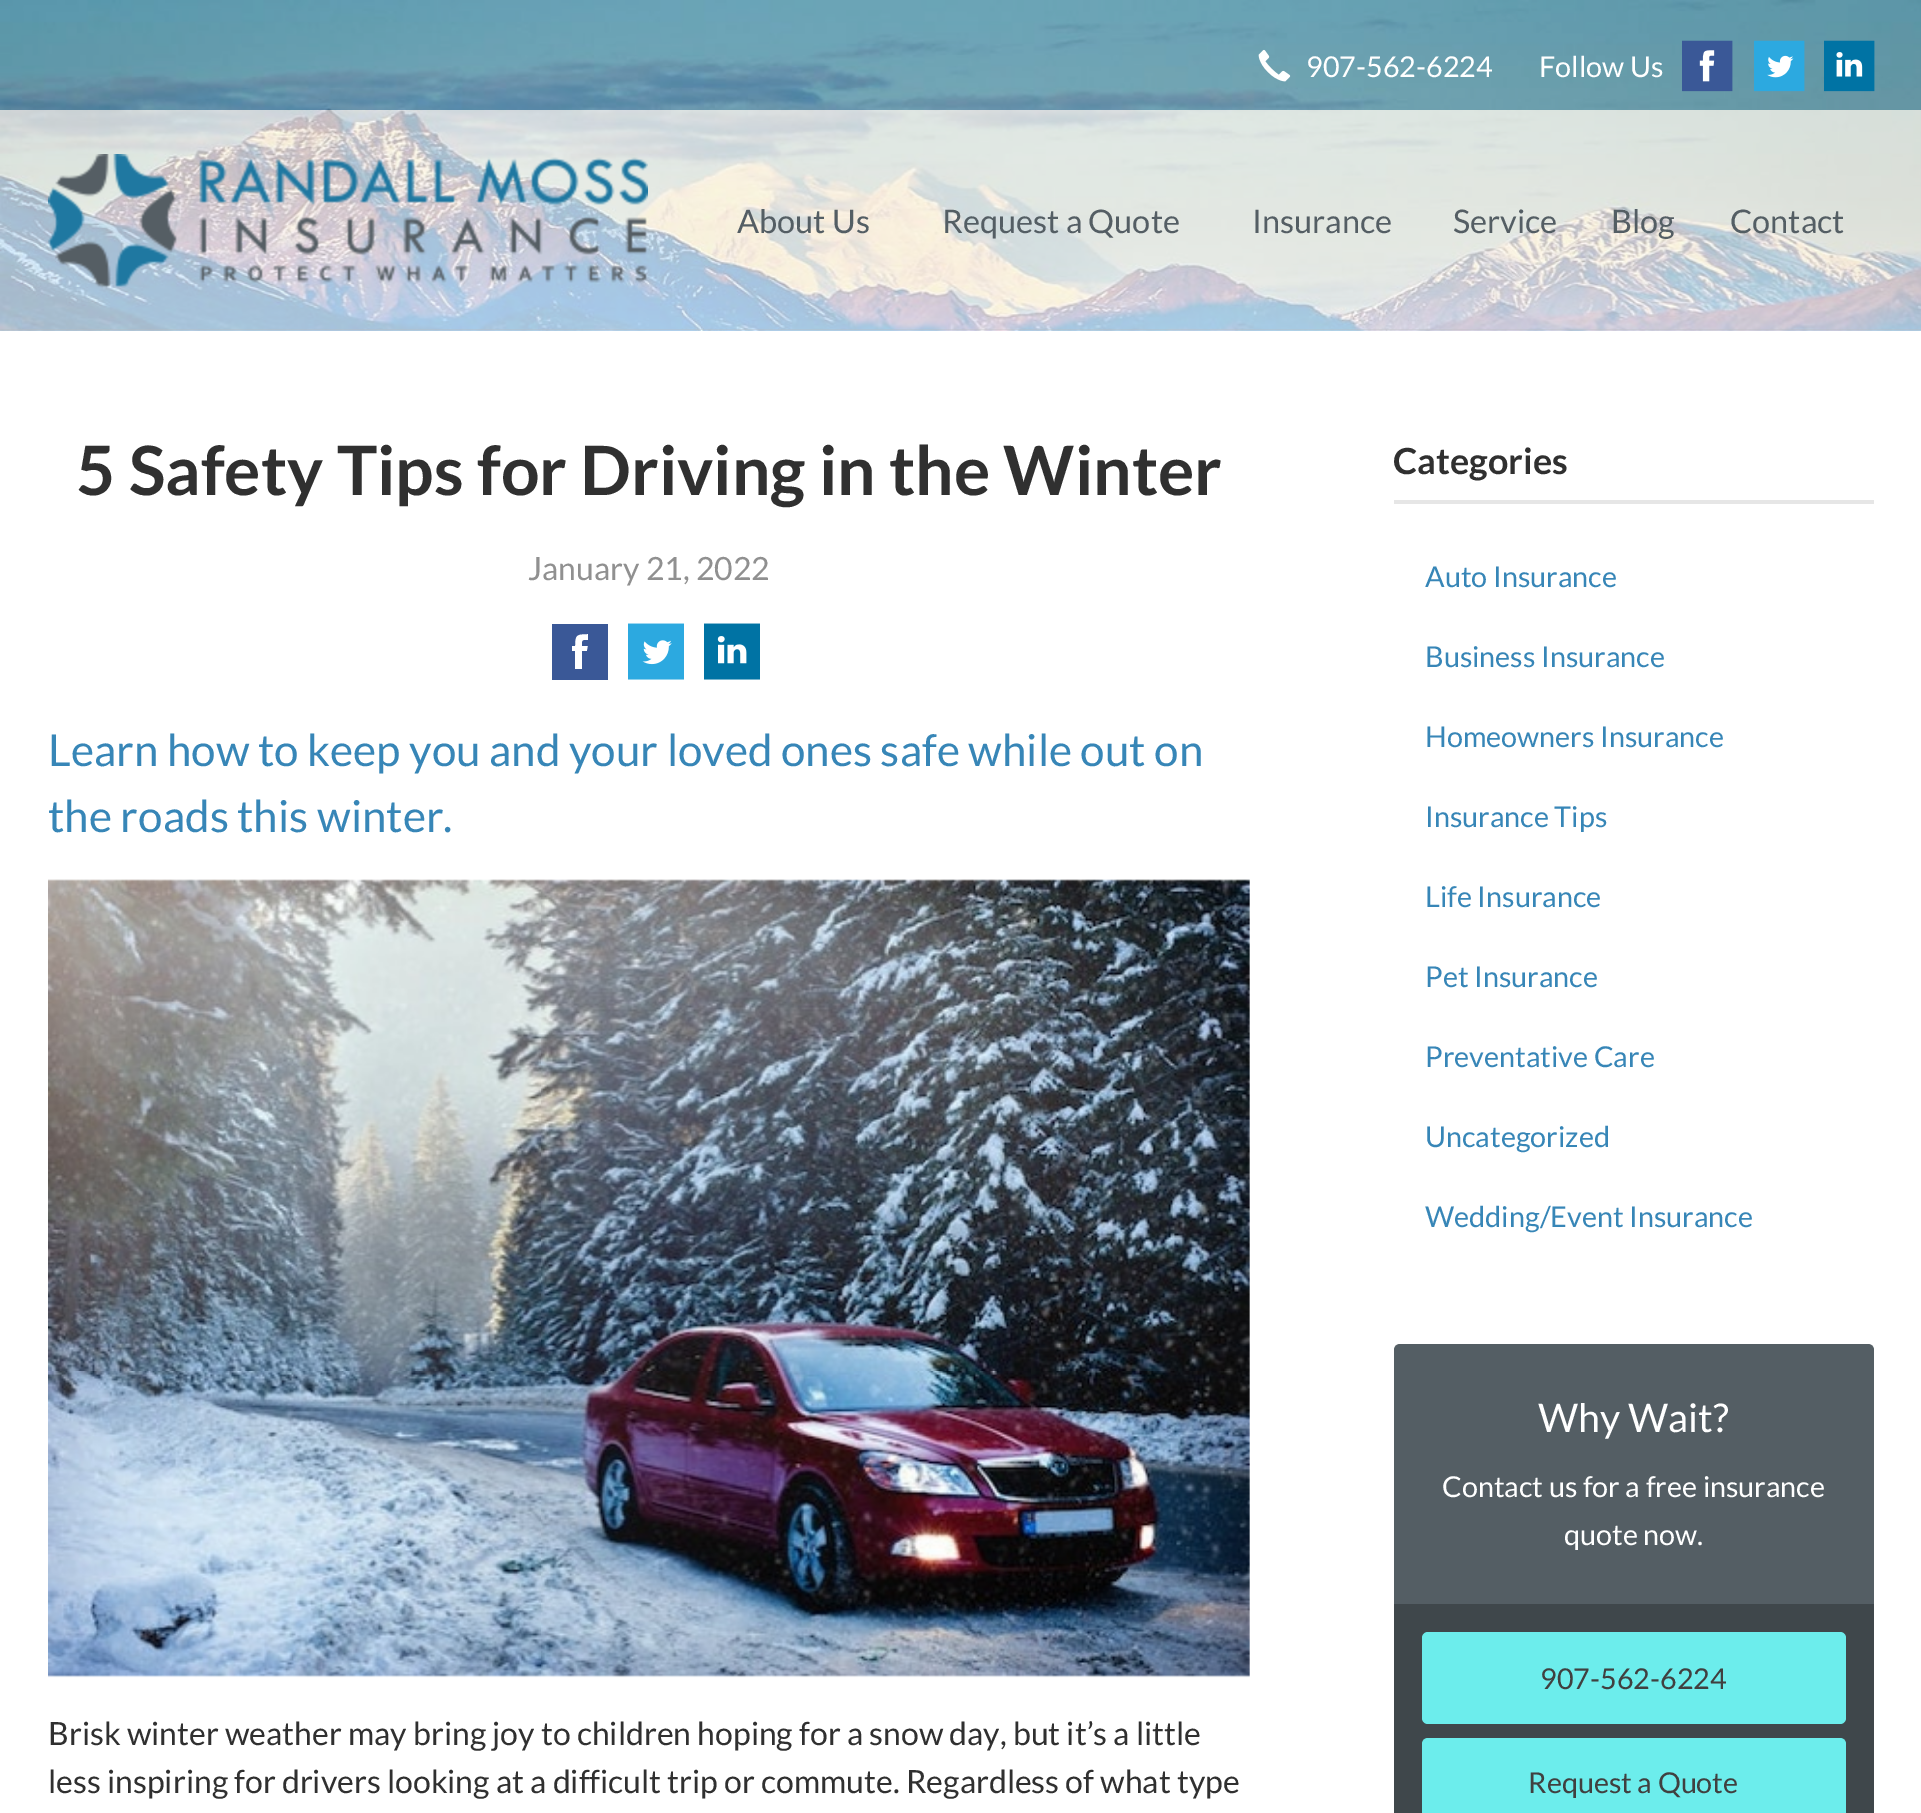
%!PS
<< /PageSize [1921 1813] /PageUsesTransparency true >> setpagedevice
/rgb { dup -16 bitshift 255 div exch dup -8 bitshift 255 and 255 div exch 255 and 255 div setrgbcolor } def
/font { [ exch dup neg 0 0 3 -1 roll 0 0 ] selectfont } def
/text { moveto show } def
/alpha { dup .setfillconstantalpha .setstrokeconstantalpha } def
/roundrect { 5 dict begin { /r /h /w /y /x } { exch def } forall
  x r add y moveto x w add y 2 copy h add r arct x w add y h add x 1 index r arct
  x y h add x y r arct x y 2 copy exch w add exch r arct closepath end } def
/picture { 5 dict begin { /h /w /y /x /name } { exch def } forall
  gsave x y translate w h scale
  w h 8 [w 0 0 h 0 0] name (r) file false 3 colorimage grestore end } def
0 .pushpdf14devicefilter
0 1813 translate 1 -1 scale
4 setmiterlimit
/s1 { /Lato-Regular 28.75 font 16#FFFFFF rgb } def
/s2 { /Lato-Regular 32.5 font 16#545E64 rgb } def
/s3 { /Lato-Bold 68 font 16#303030 rgb } def
/s4 { /Lato-Regular 32 font 16#909090 rgb } def
/s5 { /Lato-Regular 44 font 16#3786B7 rgb } def
/s6 { /Lato-Regular 32 font 16#303030 rgb } def
/s7 { /Lato-Bold 36 font 16#303030 rgb } def
/s8 { /Lato-Regular 28.75 font 16#3786B7 rgb } def
/s9 { /Lato-Regular 39.5 font 16#FFFFFF rgb } def
/s10 { /Lato-Regular 28.75 font 16#404040 rgb } def
16#404040 rgb
0 0 1921 1813 rectfill
16#FFFFFF rgb
0 330 1921 1483 rectfill
(pic1.raw) 0 0 1921 331 picture
0.45 alpha
16#3786B7 rgb
0 0 1921 110 rectfill
1 alpha
(pic2.raw) 1258 49 33 33 picture
s1
(907-562-6224) 1306 77 text
(Follow Us) 1539 77 text
1699 50 16 32 rectfill
(pic3.raw) 1682 40 51 52 picture
1767 55 27 23 rectfill
(pic4.raw) 1754 40 51 52 picture
1836 52 27 25 rectfill
(pic5.raw) 1824 40 51 52 picture
0.65 alpha
0 110 1921 220 rectfill
1 alpha
(pic6.raw) 48 154 600 133 picture
s2
(About Us) 737 233 text
(Request a Quote) 942 233 text
(Insurance) 1252 233 text
(Service) 1453 233 text
(Blog) 1611 233 text
(Contact) 1730 233 text
s3
(5 Safety Tips for Driving in the Winter) 76 495 text
s4
(January 21, 2022) 528 580 text
16#3A5897 rgb
552 680 moveto 608 680 lineto 608 624 lineto 552 624 lineto closepath 572 646 moveto 575 646 lineto 575 635 576 634 588 634 curveto 588 640 lineto 582 640 582 640 582 646 curveto 588 646 lineto 587 651 lineto 582 651 lineto 582 669 lineto 575 669 lineto 575 651 lineto 572 651 lineto closepath fill
(pic7.raw) 628 623 56 57 picture
(pic8.raw) 704 623 56 57 picture
s5
(Learn how to keep you and your loved ones safe while out on) 48 766 text
(the roads this winter.) 48 832 text
(pic9.raw) 48 879 1202 799 picture
s6
(Brisk winter weather may bring joy to children hoping for a snow day, but it’s a little) 48 1745 text
(less inspiring for drivers looking at a difficult trip or commute. Regardless of what type) 48 1793 text
16#E6E6E6 rgb
1394 500 480 4 rectfill
s7
(Categories) 1393 474 text
s8
(Auto Insurance) 1425 587 text
(Business Insurance) 1425 667 text
(Homeowners Insurance) 1425 747 text
(Insurance Tips) 1425 827 text
(Life Insurance) 1425 907 text
(Pet Insurance) 1425 987 text
(Preventative Care) 1425 1067 text
(Uncategorized) 1425 1147 text
(Wedding/Event Insurance) 1425 1227 text
16#545E64 rgb
1400 1344 moveto 1868 1344 lineto 1871.5 1344 1874 1346.5 1874 1350 curveto 1874 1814 lineto 1394 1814 lineto 1394 1350 lineto 1394 1346.5 1396.5 1344 1400 1344 curveto closepath fill
s9
(Why Wait?) 1538 1432 text
s1
(Contact us for a free insurance) 1442 1497 text
(quote now.) 1564 1545 text
16#3F474B rgb
1394 1604 480 209 rectfill
16#6CEDEC rgb
1422 1632 424 92 6 roundrect fill
s10
(907-562-6224) 1540 1689 text
16#6CEDEC rgb
1428 1738 moveto 1840 1738 lineto 1843.5 1738 1846 1740.5 1846 1744 curveto 1846 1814 lineto 1422 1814 lineto 1422 1744 lineto 1422 1740.5 1424.5 1738 1428 1738 curveto closepath fill
s10
(Request a Quote) 1528 1793 text
.poppdf14devicefilter showpage
